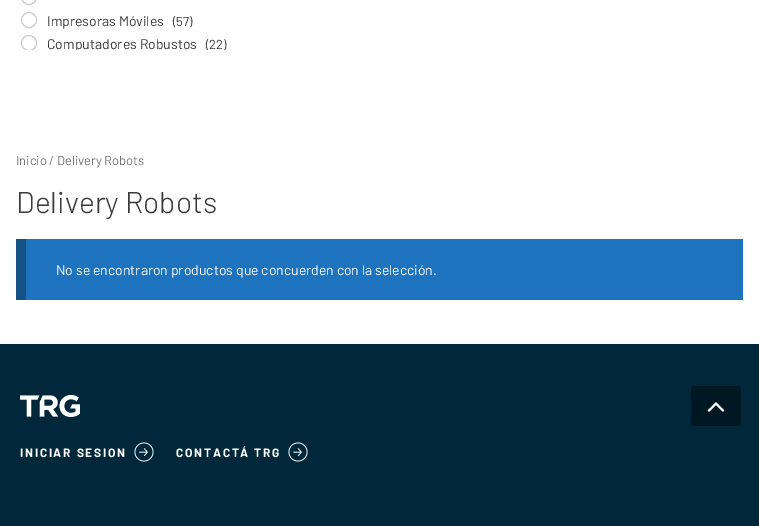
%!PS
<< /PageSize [759 526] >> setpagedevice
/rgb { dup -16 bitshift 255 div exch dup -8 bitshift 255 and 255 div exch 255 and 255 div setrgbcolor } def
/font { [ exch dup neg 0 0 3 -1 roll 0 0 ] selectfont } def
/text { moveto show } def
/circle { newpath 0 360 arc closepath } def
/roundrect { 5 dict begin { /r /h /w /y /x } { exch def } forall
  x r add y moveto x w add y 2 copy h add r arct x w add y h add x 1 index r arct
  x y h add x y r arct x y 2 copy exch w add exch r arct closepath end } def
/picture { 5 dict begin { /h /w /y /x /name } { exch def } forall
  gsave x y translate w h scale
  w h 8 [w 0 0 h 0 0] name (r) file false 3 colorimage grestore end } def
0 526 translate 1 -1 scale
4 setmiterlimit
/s1 { /Barlow-Regular 14 font 16#3A3A3A rgb } def
/s2 { /Barlow-Regular 13 font 16#3A3A3A rgb } def
/s3 { /Barlow-Regular 12.9 font 16#767676 rgb } def
/s4 { /Barlow-Light 30 font 16#3A3A3A rgb } def
/s5 { /Barlow-Regular 14 font 16#FFFFFF rgb } def
16#FFFFFF rgb
0 0 759 526 rectfill
16#CCCCCC rgb
21.5 -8.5 15 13 7.5 roundrect stroke
29 20 7.5 circle stroke
s1
(Impresoras Móviles) 47 26 text
s2
(\(57\)) 173 26 text
gsave
21 0 717 50 rectclip
16#CCCCCC rgb
29 43 7.5 circle stroke
s1
(Computadores Robustos) 47 49 text
s2
(\(22\)) 206 49 text
grestore
s3
(Inicio / Delivery Robots) 16 165 text
s4
(Delivery Robots) 16 213 text
16#1E73BE rgb
26 239 717 61 rectfill
16#155185 rgb
16 239 10 61 rectfill
s5
(No se encontraron productos que concuerden con la selección.) 56 275 text
16#00283A rgb
0 344 759 182 rectfill
16#001823 rgb
691 386 50 40 3 roundrect fill
(pic1.raw) 707 402 18 10 picture
(pic2.raw) 20 395 60 22 picture
/Barlow-Bold 12 font
16#FFFFFF rgb
20 457 moveto 1.75 0 (INICIAR SESION) ashow
(pic3.raw) 134 442 20 20 picture
176 457 moveto 1.75 0 (CONTACTÁ TRG) ashow
(pic3.raw) 288 442 20 20 picture
showpage
